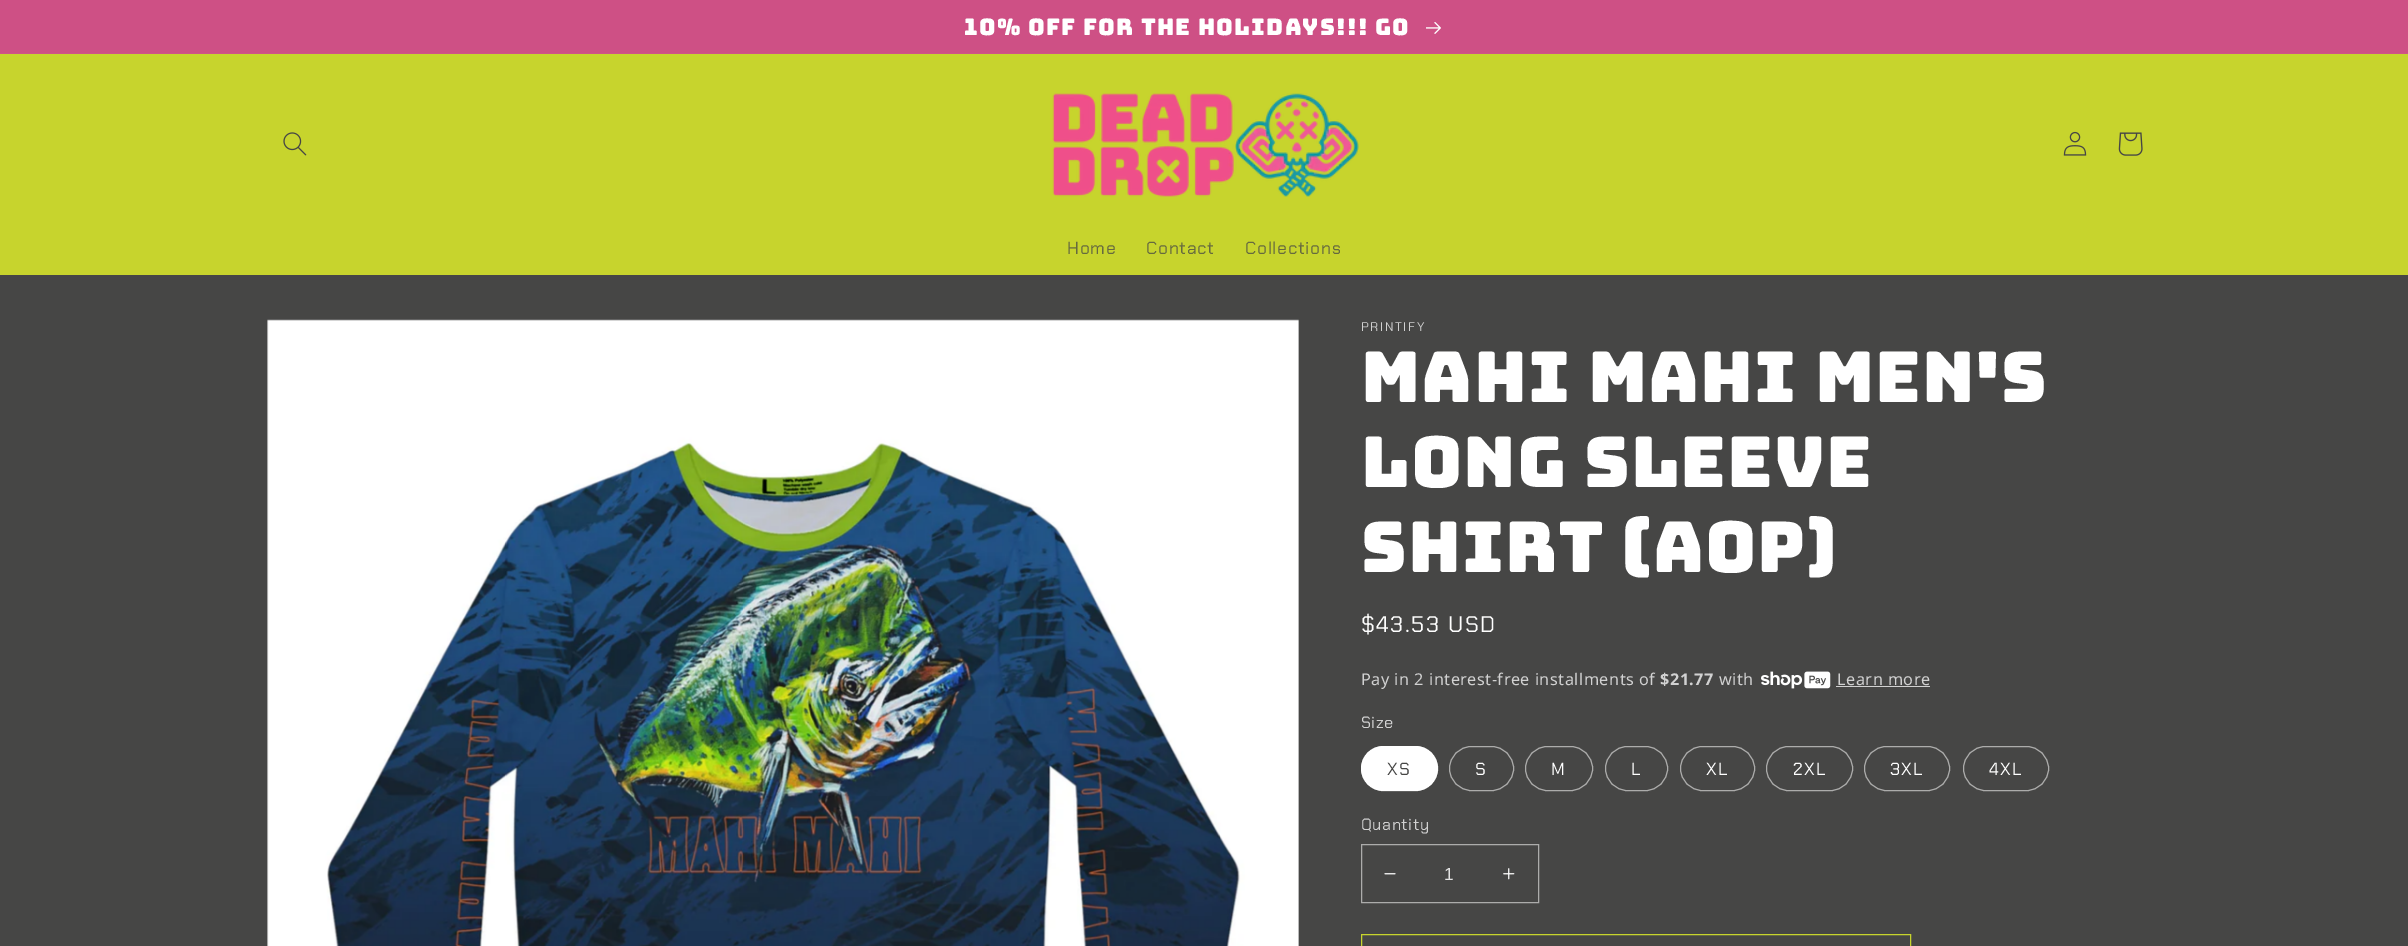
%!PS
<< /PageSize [2408 946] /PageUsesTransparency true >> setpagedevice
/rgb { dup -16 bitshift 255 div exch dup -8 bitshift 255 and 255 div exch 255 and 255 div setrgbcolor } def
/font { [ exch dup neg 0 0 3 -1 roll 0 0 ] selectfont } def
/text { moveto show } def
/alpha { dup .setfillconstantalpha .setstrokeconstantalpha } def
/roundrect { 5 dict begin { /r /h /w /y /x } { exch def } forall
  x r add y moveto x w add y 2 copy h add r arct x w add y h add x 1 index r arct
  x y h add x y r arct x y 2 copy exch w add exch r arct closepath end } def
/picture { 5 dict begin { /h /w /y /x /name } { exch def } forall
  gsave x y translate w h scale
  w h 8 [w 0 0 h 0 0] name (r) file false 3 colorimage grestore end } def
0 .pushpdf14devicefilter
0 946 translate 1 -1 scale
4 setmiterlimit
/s1 { /LiberationSans-Regular 17.5 font 16#E3E3E3 rgb } def
16#464645 rgb
0 0 2408 946 rectfill
16#CF5487 rgb
0 53 2408 1 rectfill
16#CE5085 rgb
0 0 2408 53 rectfill
/Bungee-Regular 22.75 font
16#FFFFFF rgb
964 35 moveto 1.25 0 (10% off for the Holidays!!! G0) ashow
(pic1.raw) 1426 22 15 12 picture
16#C7D42D rgb
0 54 2408 221 rectfill
(pic2.raw) 283 132 24 24 picture
(pic3.raw) 1052 93 307 104 picture
(pic4.raw) 2063 131 24 25 picture
(pic5.raw) 2118 132 25 24 picture
/ChakraPetch-Regular 17.5 font
16#666A3F rgb
1067 254 moveto 0.75 0 (Home) ashow
1146 254 moveto 0.75 0 (Contact) ashow
1245 254 moveto 0.75 0 (Collections) ashow
(pic6.raw) 267 319 1032 627 picture
/ChakraPetch-Regular 12.5 font
16#D1D1D1 rgb
1361 331 moveto 1.6 0 (PRINTIFY) ashow
/Bungee-Regular 70 font
16#FFFFFF rgb
1361 402 moveto 1 0 (Mahi Mahi Men's) ashow
1361 487 moveto 1 0 (Long Sleeve) ashow
1361 572 moveto 1 0 (Shirt \(AOP\)) ashow
/ChakraPetch-Regular 22.5 font
1361 632 moveto 1.6 0 ($43.53 USD) ashow
/NotoSans-Regular 16.25 font
16#D1D1D1 rgb
1361 685 moveto 0.5 0 (Pay in 2 interest-free installments of) ashow
/NotoSans-Bold 16.25 font
1660 685 moveto 0.5 0 ($21.77) ashow
/NotoSans-Regular 16.25 font
1719 685 moveto 0.5 0 (with) ashow
(pic7.raw) 1761 671 70 18 picture
1837 685 moveto 0.5 0 (Learn more) ashow
1836 686 94 1 rectfill
/ChakraPetch-Regular 16.25 font
1361 728 moveto 0.5 0 (Size) ashow
16#FFFFFF rgb
1361 746 77 45 22.5 roundrect fill
0.55 alpha
1361.5 746.5 76 44 22 roundrect stroke
/ChakraPetch-Regular 17.5 font
1 alpha
16#464645 rgb
1387 775 moveto 1.25 0 (XS) ashow
16#ACACAB rgb
1449.5 746.5 64 44 22 roundrect stroke
16#FFFFFF rgb
1475 775 moveto 1.25 0 (S) ashow
16#ACACAB rgb
1525.5 746.5 67 44 22 roundrect stroke
16#FFFFFF rgb
1551 775 moveto 1.25 0 (M) ashow
16#ACACAB rgb
1605.5 746.5 62 44 22 roundrect stroke
16#FFFFFF rgb
1631 775 moveto 1.25 0 (L) ashow
16#ACACAB rgb
1680.5 746.5 74 44 22 roundrect stroke
16#FFFFFF rgb
1706 775 moveto 1.25 0 (XL) ashow
16#ACACAB rgb
1766.5 746.5 86 44 22 roundrect stroke
16#FFFFFF rgb
1793 775 moveto 1.25 0 (2XL) ashow
16#ACACAB rgb
1864.5 746.5 85 44 22 roundrect stroke
16#FFFFFF rgb
1890 775 moveto 1.25 0 (3XL) ashow
16#ACACAB rgb
1963.5 746.5 85 44 22 roundrect stroke
16#FFFFFF rgb
1989 775 moveto 1.25 0 (4XL) ashow
/ChakraPetch-Regular 16.25 font
16#D1D1D1 rgb
1361 830 moveto 0.5 0 (Quantity) ashow
(pic8.raw) 1384 873 12 2 picture
(pic9.raw) 1503 868 12 12 picture
16#ACACAB rgb
1361.5 844.5 177 58 rectstroke
s1
(1) 1444 880 text
16#C7D42D rgb
1361.5 934.5 549 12 rectstroke
.poppdf14devicefilter showpage
